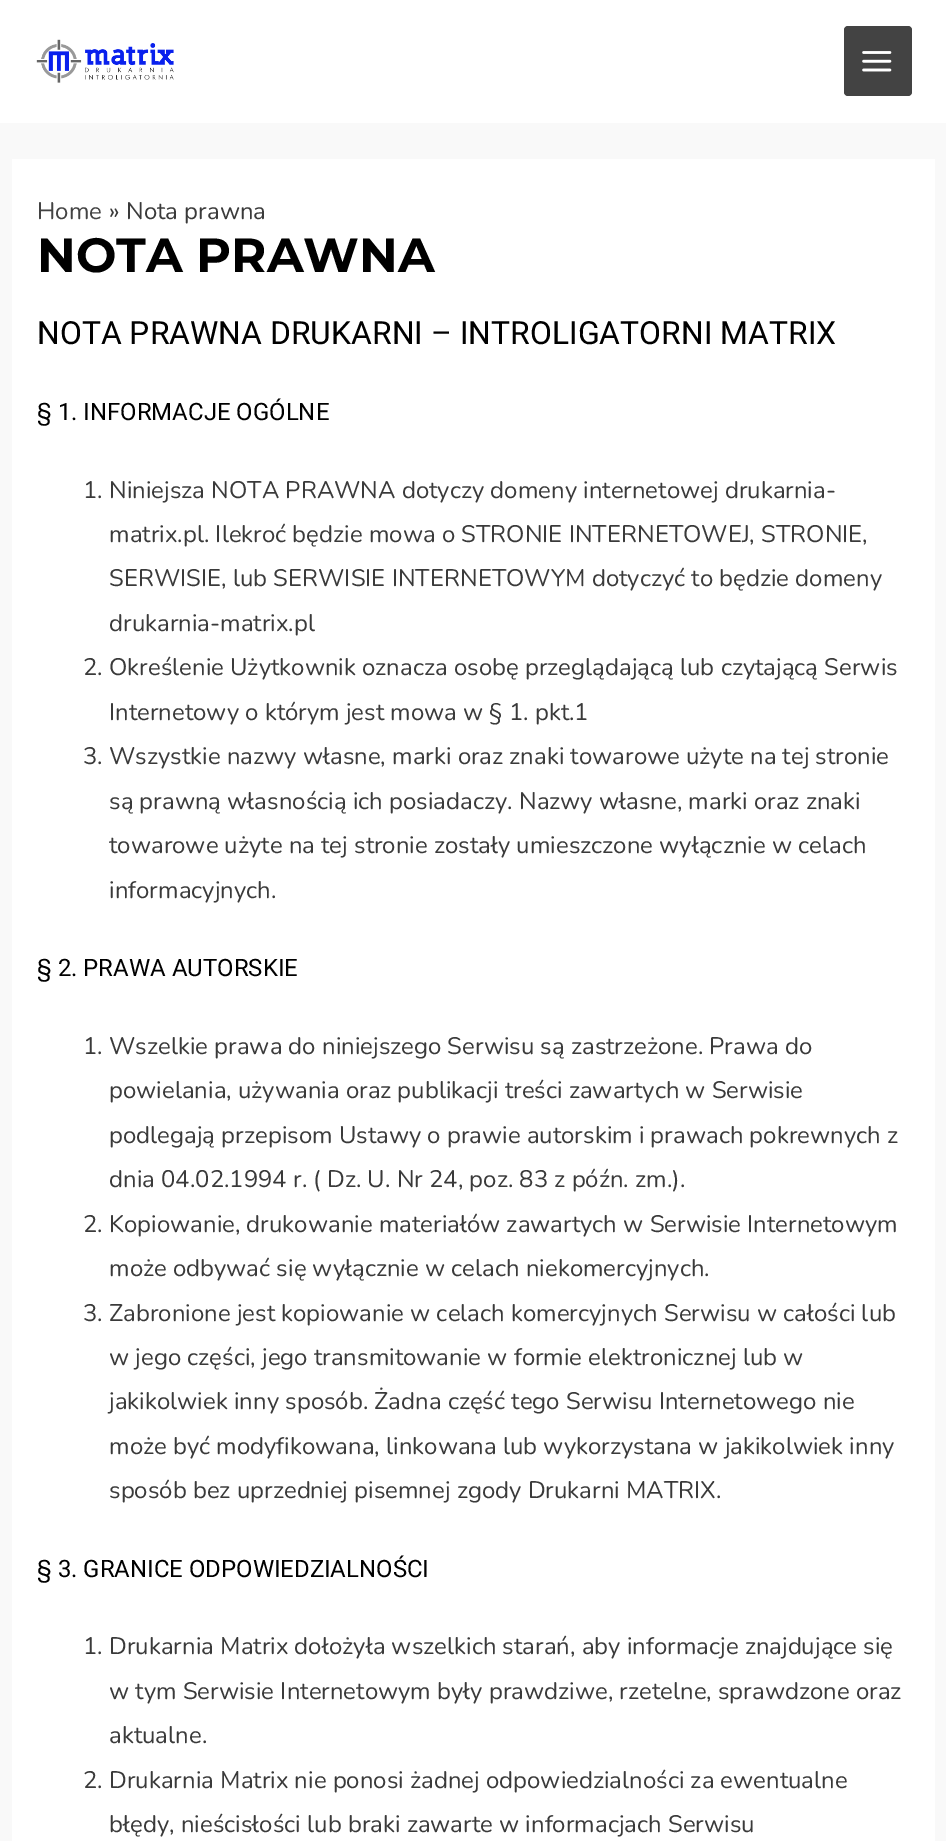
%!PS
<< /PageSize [946 1841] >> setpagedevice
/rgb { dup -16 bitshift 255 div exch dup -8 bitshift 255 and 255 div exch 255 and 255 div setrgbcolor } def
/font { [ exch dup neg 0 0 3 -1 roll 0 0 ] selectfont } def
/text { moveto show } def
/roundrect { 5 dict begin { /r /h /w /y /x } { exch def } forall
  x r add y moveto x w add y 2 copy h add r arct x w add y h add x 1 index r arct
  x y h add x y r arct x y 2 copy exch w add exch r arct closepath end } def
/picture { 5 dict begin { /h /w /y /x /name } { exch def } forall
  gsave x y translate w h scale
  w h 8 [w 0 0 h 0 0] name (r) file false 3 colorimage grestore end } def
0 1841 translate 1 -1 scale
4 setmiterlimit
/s1 { /Nunito-ExtraLight 23.95 font 16#434343 rgb } def
/s2 { /Nunito-ExtraLight 23.95 font 16#3A3A3A rgb } def
/s3 { /Montserrat-Thin 48 font 16#000000 rgb } def
/s4 { /Roboto-Regular 31.9 font 16#000000 rgb } def
/s5 { /Roboto-Regular 23.95 font 16#000000 rgb } def
16#F9F9F9 rgb
0 0 946 1841 rectfill
16#FFFFFF rgb
0 0 946 123 rectfill
(pic1.raw) 36 39 138 44 picture
16#434343 rgb
844 26 68 70 4 roundrect fill
(pic2.raw) 862 51 30 21 picture
16#FFFFFF rgb
12 159 923 1682 rectfill
s1
(Home) 37 219 text
s2
(») 109 219 text
(Nota prawna) 126 219 text
s3
(NOTA PRAWNA) 37 272 text
s4
(NOTA PRAWNA DRUKARNI – INTROLIGATORNI MATRIX) 37 344 text
s5
(§ 1. INFORMACJE OGÓLNE) 37 420 text
s2
(1. Niniejsza NOTA PRAWNA dotyczy domeny internetowej drukarnia-) 83 498 text
(matrix.pl. Ilekroć będzie mowa o STRONIE INTERNETOWEJ, STRONIE,) 109 542 text
(SERWISIE, lub SERWISIE INTERNETOWYM dotyczyć to będzie domeny) 109 586 text
(drukarnia-matrix.pl) 109 631 text
(2. Określenie Użytkownik oznacza osobę przeglądającą lub czytającą Serwis) 83 675 text
(Internetowy o którym jest mowa w § 1. pkt.1) 109 720 text
(3. Wszystkie nazwy własne, marki oraz znaki towarowe użyte na tej stronie) 83 764 text
(są prawną własnością ich posiadaczy. Nazwy własne, marki oraz znaki) 109 809 text
(towarowe użyte na tej stronie zostały umieszczone wyłącznie w celach) 109 853 text
(informacyjnych.) 109 898 text
s5
(§ 2. PRAWA AUTORSKIE) 37 976 text
s2
(1. Wszelkie prawa do niniejszego Serwisu są zastrzeżone. Prawa do) 83 1054 text
(powielania, używania oraz publikacji treści zawartych w Serwisie) 109 1098 text
(podlegają przepisom Ustawy o prawie autorskim i prawach pokrewnych z) 109 1143 text
(dnia 04.02.1994 r. \( Dz. U. Nr 24, poz. 83 z późn. zm.\).) 109 1187 text
(2. Kopiowanie, drukowanie materiałów zawartych w Serwisie Internetowym) 83 1232 text
(może odbywać się wyłącznie w celach niekomercyjnych.) 109 1276 text
(3. Zabronione jest kopiowanie w celach komercyjnych Serwisu w całości lub) 83 1321 text
(w jego części, jego transmitowanie w formie elektronicznej lub w) 109 1365 text
(jakikolwiek inny sposób. Żadna część tego Serwisu Internetowego nie) 109 1409 text
(może być modyfikowana, linkowana lub wykorzystana w jakikolwiek inny) 109 1454 text
(sposób bez uprzedniej pisemnej zgody Drukarni MATRIX.) 109 1498 text
s5
(§ 3. GRANICE ODPOWIEDZIALNOŚCI) 37 1577 text
s2
(1. Drukarnia Matrix dołożyła wszelkich starań, aby informacje znajdujące się) 83 1654 text
(w tym Serwisie Internetowym były prawdziwe, rzetelne, sprawdzone oraz) 109 1699 text
(aktualne.) 109 1743 text
(2. Drukarnia Matrix nie ponosi żadnej odpowiedzialności za ewentualne) 83 1788 text
(błędy, nieścisłości lub braki zawarte w informacjach Serwisu) 109 1832 text
showpage
